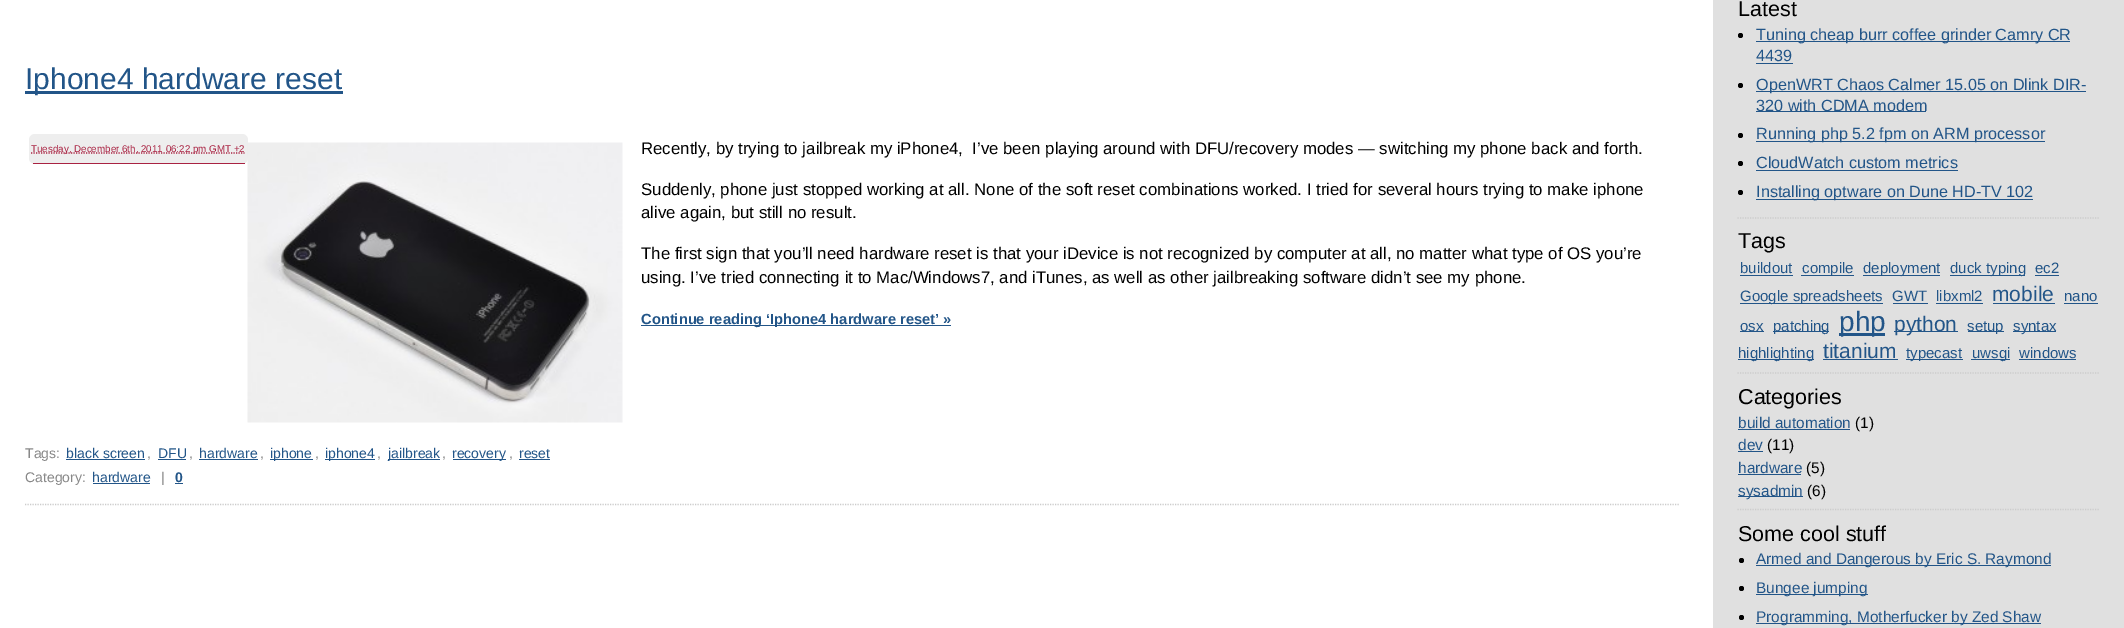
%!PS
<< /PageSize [2124 628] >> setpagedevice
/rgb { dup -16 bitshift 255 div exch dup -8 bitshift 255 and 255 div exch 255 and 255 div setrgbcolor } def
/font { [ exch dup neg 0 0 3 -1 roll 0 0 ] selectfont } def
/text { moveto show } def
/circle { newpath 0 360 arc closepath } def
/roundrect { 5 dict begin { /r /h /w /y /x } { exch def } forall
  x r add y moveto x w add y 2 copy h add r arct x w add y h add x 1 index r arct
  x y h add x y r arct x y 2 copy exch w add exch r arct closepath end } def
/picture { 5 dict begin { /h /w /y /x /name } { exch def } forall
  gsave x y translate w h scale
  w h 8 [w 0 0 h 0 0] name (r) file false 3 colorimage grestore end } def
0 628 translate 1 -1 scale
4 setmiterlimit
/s1 { /LiberationSans-Regular 30 font 16#225588 rgb } def
/s2 { /LiberationSans-Regular 9.8 font 16#A92242 rgb } def
/s3 { /LiberationSans-Regular 16.8 font 16#000000 rgb } def
/s4 { /LiberationSans-Bold 14.7 font 16#225588 rgb } def
/s5 { /LiberationSans-Regular 14 font 16#888888 rgb } def
/s6 { /LiberationSans-Regular 14 font 16#225588 rgb } def
/s7 { /LiberationSans-Bold 14 font 16#225588 rgb } def
/s8 { /LiberationSans-Regular 21.5 font 16#000000 rgb } def
/s9 { /LiberationSans-Regular 16.2 font 16#225588 rgb } def
/s10 { /LiberationSans-Regular 15 font 16#225588 rgb } def
/s11 { /LiberationSans-Regular 21 font 16#225588 rgb } def
/s12 { /LiberationSans-Regular 28 font 16#225588 rgb } def
/s13 { /LiberationSans-Regular 15.4 font 16#225588 rgb } def
/s14 { /LiberationSans-Regular 15.4 font 16#000000 rgb } def
16#FFFFFF rgb
0 0 2124 628 rectfill
16#CCCCCC rgb
1.2 setlinewidth
[1.25 1.25] 0 setdash
25 504.5 moveto 1679 504.5 lineto stroke
16#225588 rgb
25 91 318 3 rectfill
s1
(Iphone4 hardware reset) 25 89 text
16#EEEEEE rgb
29 134 219 30 6 roundrect fill
16#A92242 rgb
33 163 212 1 rectfill
31 153 moveto 244.5 153 lineto stroke
s2
(Tuesday, December 6th, 2011 06:22 pm GMT +2) 31 152 text
(pic1.raw) 247 142 376 281 picture
s3
(Recently, by trying to jailbreak my iPhone4,  I’ve been playing around with DFU/recovery modes — switching my phone back and forth.) 641 154 text
(Suddenly, phone just stopped working at all. None of the soft reset combinations worked. I tried for several hours trying to make iphone) 641 195 text
(alive again, but still no result.) 641 218 text
(The first sign that you’ll need hardware reset is that your iDevice is not recognized by computer at all, no matter what type of OS you’re) 641 259 text
(using. I’ve tried connecting it to Mac/Windows7, and iTunes, as well as other jailbreaking software didn’t see my phone.) 641 283 text
16#225588 rgb
641 325 310 1 rectfill
s4
(Continue reading ‘Iphone4 hardware reset’ ») 641 324 text
s5
(Tags:) 25 458 text
s6
(black screen) 66 458 text
66 459 79 1 rectfill
s5
(,) 147 458 text
s6
(DFU) 158 458 text
158 459 28 1 rectfill
s5
(,) 189 458 text
s6
(hardware) 199 458 text
199 459 59 1 rectfill
s5
(,) 260 458 text
16#225588 rgb
270 459 43 1 rectfill
(iphone) 270 458 text
s5
(,) 315 458 text
16#225588 rgb
325 459 50 1 rectfill
(iphone4) 325 458 text
s5
(,) 377 458 text
16#225588 rgb
388 459 52 1 rectfill
(jailbreak) 388 458 text
s5
(,) 442 458 text
16#225588 rgb
453 459 53 1 rectfill
(recovery) 452 458 text
s5
(,) 509 458 text
s6
(reset) 519 458 text
519 459 31 1 rectfill
s5
(Category:) 25 482 text
s6
(hardware) 92 482 text
93 483 57 1 rectfill
s5
(|) 161 482 text
s7
(0) 175 482 text
175 483 8 1 rectfill
16#E0E0E0 rgb
1713 0 411 628 rectfill
16#CCCCCC rgb
1737.5 218 moveto 2100 218 lineto stroke
s8
(Latest) 1738 16 text
1740.5 35.5 2.5 circle fill
16#225588 rgb
1756 41 314 1 rectfill
s9
(Tuning cheap burr coffee grinder Camry CR) 1756 40 text
(4439) 1756 61 text
1756 63 37 1 rectfill
16#000000 rgb
1740.5 85.5 2.5 circle fill
16#225588 rgb
1756 91 330 1 rectfill
(OpenWRT Chaos Calmer 15.05 on Dlink DIR-) 1756 90 text
1756 111 170 1 rectfill
(320 with CDMA modem) 1756 111 text
16#000000 rgb
1740.5 135.5 2.5 circle fill
16#225588 rgb
1756 141 289 1 rectfill
(Running php 5.2 fpm on ARM processor) 1756 139 text
16#000000 rgb
1740.5 163.5 2.5 circle fill
s9
(CloudWatch custom metrics) 1756 168 text
1756 170 202 1 rectfill
16#000000 rgb
1740.5 192.5 2.5 circle fill
16#225588 rgb
1756 199 277 1 rectfill
(Installing optware on Dune HD-TV 102) 1756 197 text
16#CCCCCC rgb
1737.5 373 moveto 2100 373 lineto stroke
s8
(Tags) 1738 248 text
s10
(buildout) 1740 273 text
1740 275 53 1 rectfill
1801 275 53 1 rectfill
(compile) 1802 273 text
1863 275 77 1 rectfill
(deployment) 1863 273 text
1950 275 75 1 rectfill
(duck typing) 1950 273 text
(ec2) 2035 273 text
2035 275 24 1 rectfill
1740 303 143 1 rectfill
(Google spreadsheets) 1740 301 text
(GWT) 1892 301 text
1893 303 35 1 rectfill
(libxml2) 1936 301 text
1936 303 47 1 rectfill
s11
(mobile) 1992 301 text
1993 303 62 1 rectfill
s10
(nano) 2064 301 text
2064 303 34 1 rectfill
1740 331 24 1 rectfill
(osx) 1740 331 text
1773 331 56 1 rectfill
(patching) 1773 331 text
1839 333 46 3 rectfill
s12
(php) 1839 331 text
1894 331 64 1 rectfill
s11
(python) 1894 331 text
1968 331 36 1 rectfill
s10
(setup) 1967 331 text
2013 331 43 1 rectfill
(syntax) 2013 331 text
1738 359 76 1 rectfill
(highlighting) 1738 358 text
s11
(titanium) 1823 358 text
1823 359 75 1 rectfill
1906 359 57 1 rectfill
s10
(typecast) 1906 358 text
1971 359 39 1 rectfill
(uwsgi) 1972 358 text
(windows) 2019 358 text
2019 359 57 1 rectfill
16#CCCCCC rgb
1737.5 509.5 moveto 2100 509.5 lineto stroke
s8
(Categories) 1738 404 text
s13
(build automation) 1738 428 text
1738 429 112 1 rectfill
s14
(\(1\)) 1855 428 text
s13
(dev) 1738 450 text
1738 451 25 1 rectfill
s14
(\(11\)) 1767 450 text
s13
(hardware) 1738 473 text
1738 474 63 1 rectfill
s14
(\(5\)) 1806 473 text
16#225588 rgb
1738 496 65 1 rectfill
(sysadmin) 1738 496 text
s14
(\(6\)) 1807 496 text
s8
(Some cool stuff) 1738 541 text
1741.5 560.5 2.5 circle fill
16#225588 rgb
1756 565 295 1 rectfill
s13
(Armed and Dangerous by Eric S. Raymond) 1756 564 text
16#000000 rgb
1741.5 588.5 2.5 circle fill
16#225588 rgb
1756 594 112 1 rectfill
(Bungee jumping) 1756 593 text
16#000000 rgb
1741.5 617.5 2.5 circle fill
16#225588 rgb
1756 623 285 1 rectfill
(Programming, Motherfucker by Zed Shaw) 1756 622 text
showpage
